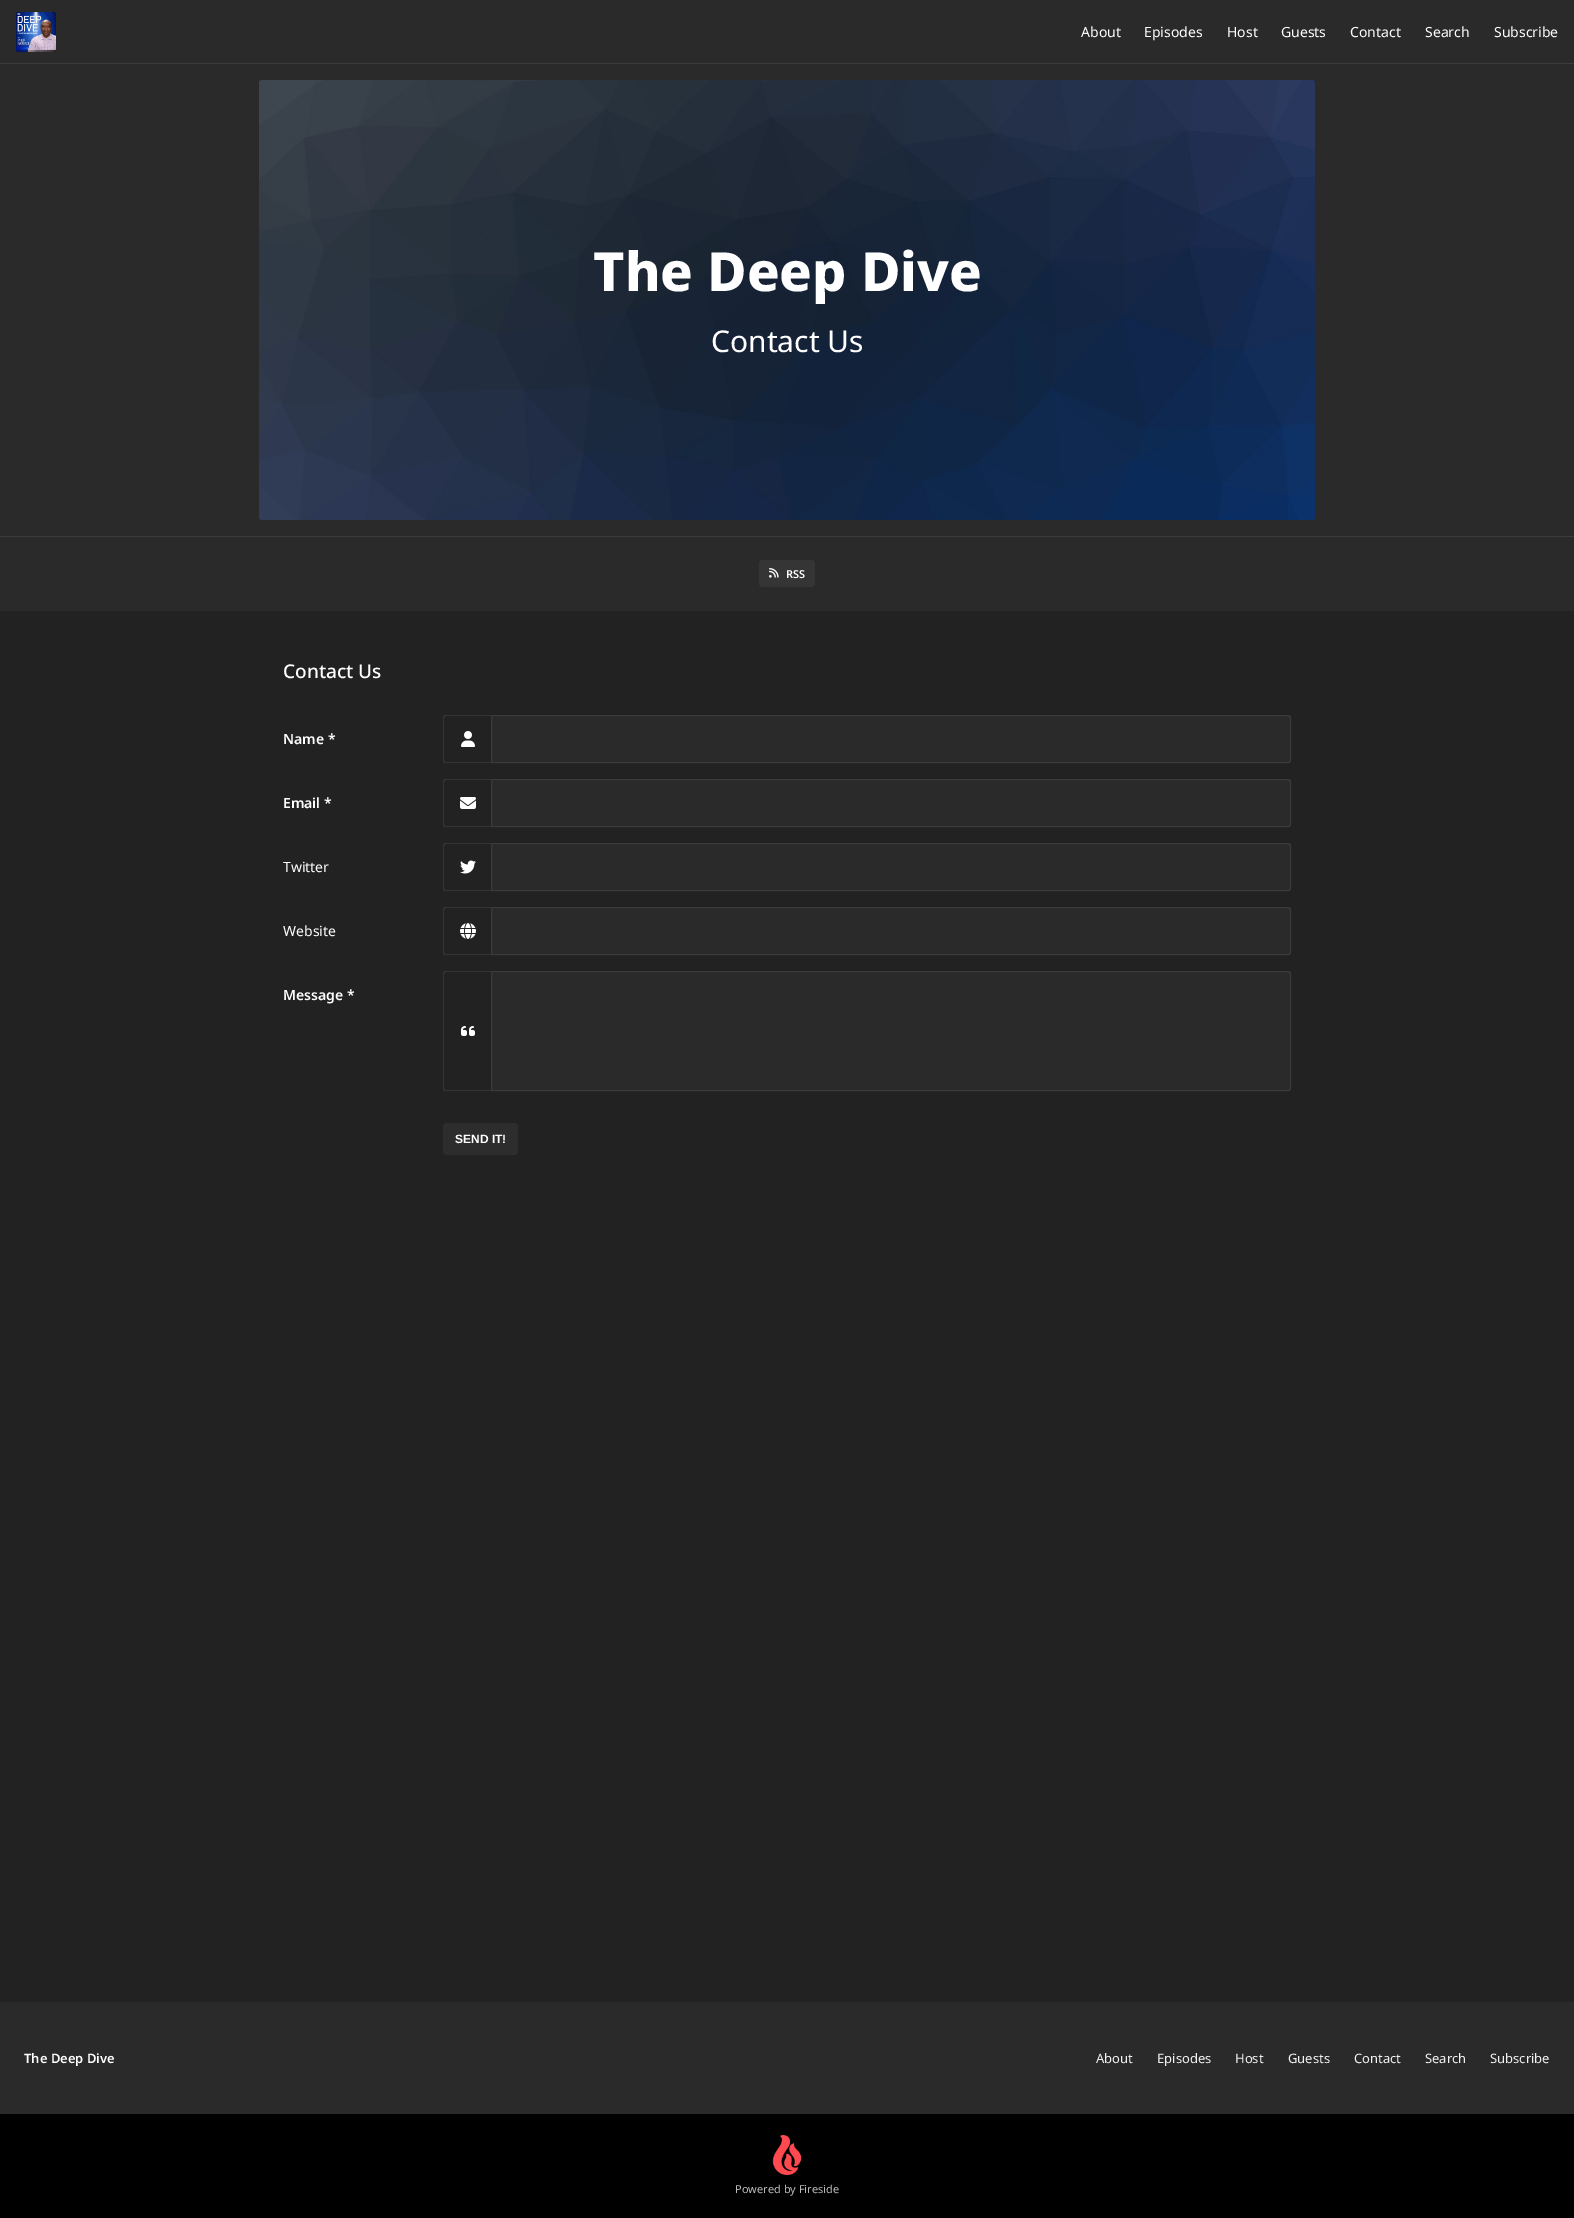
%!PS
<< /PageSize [1574 2218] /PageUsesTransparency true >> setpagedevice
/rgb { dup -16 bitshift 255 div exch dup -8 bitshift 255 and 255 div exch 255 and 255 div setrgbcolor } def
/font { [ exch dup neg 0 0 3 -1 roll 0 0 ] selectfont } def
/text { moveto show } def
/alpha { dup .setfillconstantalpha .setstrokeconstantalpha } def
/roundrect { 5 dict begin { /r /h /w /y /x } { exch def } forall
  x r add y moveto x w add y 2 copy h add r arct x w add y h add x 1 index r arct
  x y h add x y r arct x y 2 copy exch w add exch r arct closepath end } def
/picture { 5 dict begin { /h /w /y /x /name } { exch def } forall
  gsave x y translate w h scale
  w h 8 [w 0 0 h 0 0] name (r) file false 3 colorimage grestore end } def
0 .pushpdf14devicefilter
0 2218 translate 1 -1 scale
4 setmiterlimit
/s1 { /NotoSans-Regular 14 font 16#FFFFFF rgb } def
/s2 { /NotoSans-ExtraBold 54 font 16#FFFFFF rgb } def
/s3 { /NotoSans-Regular 30 font 16#FFFFFF rgb } def
/s4 { /NotoSans-SemiBold 11 font 16#FFFFFF rgb } def
/s5 { /NotoSans-Medium 19 font 16#FFFFFF rgb } def
/s6 { /NotoSans-SemiBold 14 font 16#FFFFFF rgb } def
/s7 { /LiberationSans-Bold 12 font 16#FFFFFF rgb } def
/s8 { /NotoSans-SemiBold 13 font 16#FFFFFF rgb } def
/s9 { /NotoSans-Regular 13 font 16#F2F2F2 rgb } def
/s10 { /NotoSans-Regular 11 font 16#BBBBBB rgb } def
16#222222 rgb
0 0 1574 2218 rectfill
16#2A2A2A rgb
0 0 1574 63 rectfill
16#3B3B3B rgb
0 63 1574 1 rectfill
(pic1.raw) 16 12 40 40 picture
s1
(About) 1081 37 text
(Episodes) 1144 37 text
(Host) 1227 37 text
(Guests) 1281 37 text
(Contact) 1350 37 text
(Search) 1425 37 text
(Subscribe) 1494 37 text
16#2A2A2A rgb
0 64 1574 472 rectfill
16#222222 rgb
259 80 1056 440 rectfill
(pic2.raw) 259 80 1056 440 picture
s2
(The Deep Dive) 593 291 text
s3
(Contact Us) 711 352 text
16#2A2A2A rgb
0 537 1574 74 rectfill
16#3B3B3B rgb
0 536 1574 1 rectfill
16#353535 rgb
759 560 56 27 4 roundrect fill
(pic3.raw) 769 568 10 10 picture
s4
(RSS) 786 578 text
s5
(Contact Us) 283 678 text
s6
(Name *) 283 744 text
16#343434 rgb
446 715 moveto 491 715 lineto 491 763 lineto 446 763 lineto 444 763 443 762 443 760 curveto 443 718 lineto 443 716 444 715 446 715 curveto closepath 446 716 moveto 491 716 lineto 491 762 lineto 446 762 lineto 445 762 444 761 444 760 curveto 444 718 lineto 444 717 445 716 446 716 curveto closepath eofill
(pic4.raw) 461 731 14 16 picture
16#2A2A2A rgb
491 715 moveto 1288 715 lineto 1289.5 715 1291 716.5 1291 718 curveto 1291 760 lineto 1291 761.5 1289.5 763 1288 763 curveto 491 763 lineto closepath fill
0.08 alpha
16#FFFFFF rgb
491.5 715.5 moveto 1288 715.5 lineto 1289.5 715.5 1290.5 716.5 1290.5 718 curveto 1290.5 760 lineto 1290.5 761.5 1289.5 762.5 1288 762.5 curveto 491.5 762.5 lineto closepath stroke
1 alpha
(Email *) 283 808 text
16#343434 rgb
446 779 moveto 491 779 lineto 491 827 lineto 446 827 lineto 444 827 443 826 443 824 curveto 443 782 lineto 443 780 444 779 446 779 curveto closepath 446 780 moveto 491 780 lineto 491 826 lineto 446 826 lineto 445 826 444 825 444 824 curveto 444 782 lineto 444 781 445 780 446 780 curveto closepath eofill
(pic5.raw) 460 797 16 12 picture
16#2A2A2A rgb
491 779 moveto 1288 779 lineto 1289.5 779 1291 780.5 1291 782 curveto 1291 824 lineto 1291 825.5 1289.5 827 1288 827 curveto 491 827 lineto closepath fill
0.08 alpha
16#FFFFFF rgb
491.5 779.5 moveto 1288 779.5 lineto 1289.5 779.5 1290.5 780.5 1290.5 782 curveto 1290.5 824 lineto 1290.5 825.5 1289.5 826.5 1288 826.5 curveto 491.5 826.5 lineto closepath stroke
1 alpha
s1
(Twitter) 283 872 text
16#343434 rgb
446 843 moveto 491 843 lineto 491 891 lineto 446 891 lineto 444 891 443 890 443 888 curveto 443 846 lineto 443 844 444 843 446 843 curveto closepath 446 844 moveto 491 844 lineto 491 890 lineto 446 890 lineto 445 890 444 889 444 888 curveto 444 846 lineto 444 845 445 844 446 844 curveto closepath eofill
(pic6.raw) 460 860 16 14 picture
16#2A2A2A rgb
491 843 moveto 1288 843 lineto 1289.5 843 1291 844.5 1291 846 curveto 1291 888 lineto 1291 889.5 1289.5 891 1288 891 curveto 491 891 lineto closepath fill
0.08 alpha
16#FFFFFF rgb
491.5 843.5 moveto 1288 843.5 lineto 1289.5 843.5 1290.5 844.5 1290.5 846 curveto 1290.5 888 lineto 1290.5 889.5 1289.5 890.5 1288 890.5 curveto 491.5 890.5 lineto closepath stroke
1 alpha
(Website) 283 936 text
16#343434 rgb
446 907 moveto 491 907 lineto 491 955 lineto 446 955 lineto 444 955 443 954 443 952 curveto 443 910 lineto 443 908 444 907 446 907 curveto closepath 446 908 moveto 491 908 lineto 491 954 lineto 446 954 lineto 445 954 444 953 444 952 curveto 444 910 lineto 444 909 445 908 446 908 curveto closepath eofill
(pic7.raw) 460 923 16 16 picture
16#2A2A2A rgb
491 907 moveto 1288 907 lineto 1289.5 907 1291 908.5 1291 910 curveto 1291 952 lineto 1291 953.5 1289.5 955 1288 955 curveto 491 955 lineto closepath fill
0.08 alpha
16#FFFFFF rgb
491.5 907.5 moveto 1288 907.5 lineto 1289.5 907.5 1290.5 908.5 1290.5 910 curveto 1290.5 952 lineto 1290.5 953.5 1289.5 954.5 1288 954.5 curveto 491.5 954.5 lineto closepath stroke
1 alpha
s6
(Message *) 283 1000 text
16#343434 rgb
446 971 moveto 491 971 lineto 491 1091 lineto 446 1091 lineto 444 1091 443 1090 443 1088 curveto 443 974 lineto 443 972 444 971 446 971 curveto closepath 446 972 moveto 491 972 lineto 491 1090 lineto 446 1090 lineto 445 1090 444 1089 444 1088 curveto 444 974 lineto 444 973 445 972 446 972 curveto closepath eofill
(pic8.raw) 461 1026 14 10 picture
16#2A2A2A rgb
491 971 moveto 1288 971 lineto 1289.5 971 1291 972.5 1291 974 curveto 1291 1088 lineto 1291 1089.5 1289.5 1091 1288 1091 curveto 491 1091 lineto closepath fill
0.08 alpha
16#FFFFFF rgb
491.5 971.5 moveto 1288 971.5 lineto 1289.5 971.5 1290.5 972.5 1290.5 974 curveto 1290.5 1088 lineto 1290.5 1089.5 1289.5 1090.5 1288 1090.5 curveto 491.5 1090.5 lineto closepath stroke
1 alpha
16#2D2D2D rgb
443 1123 75 32 4 roundrect fill
s7
(SEND IT!) 455 1143 text
16#2A2A2A rgb
0 2002 1574 112 rectfill
s8
(The Deep Dive) 24 2063 text
s9
(About) 1096 2063 text
(Episodes) 1157 2063 text
(Host) 1235 2063 text
(Guests) 1288 2063 text
(Contact) 1354 2063 text
(Search) 1425 2063 text
(Subscribe) 1490 2063 text
16#000000 rgb
0 2114 1574 104 rectfill
(pic9.raw) 772 2135 30 40 picture
s10
(Powered by Fireside) 735 2193 text
.poppdf14devicefilter showpage
